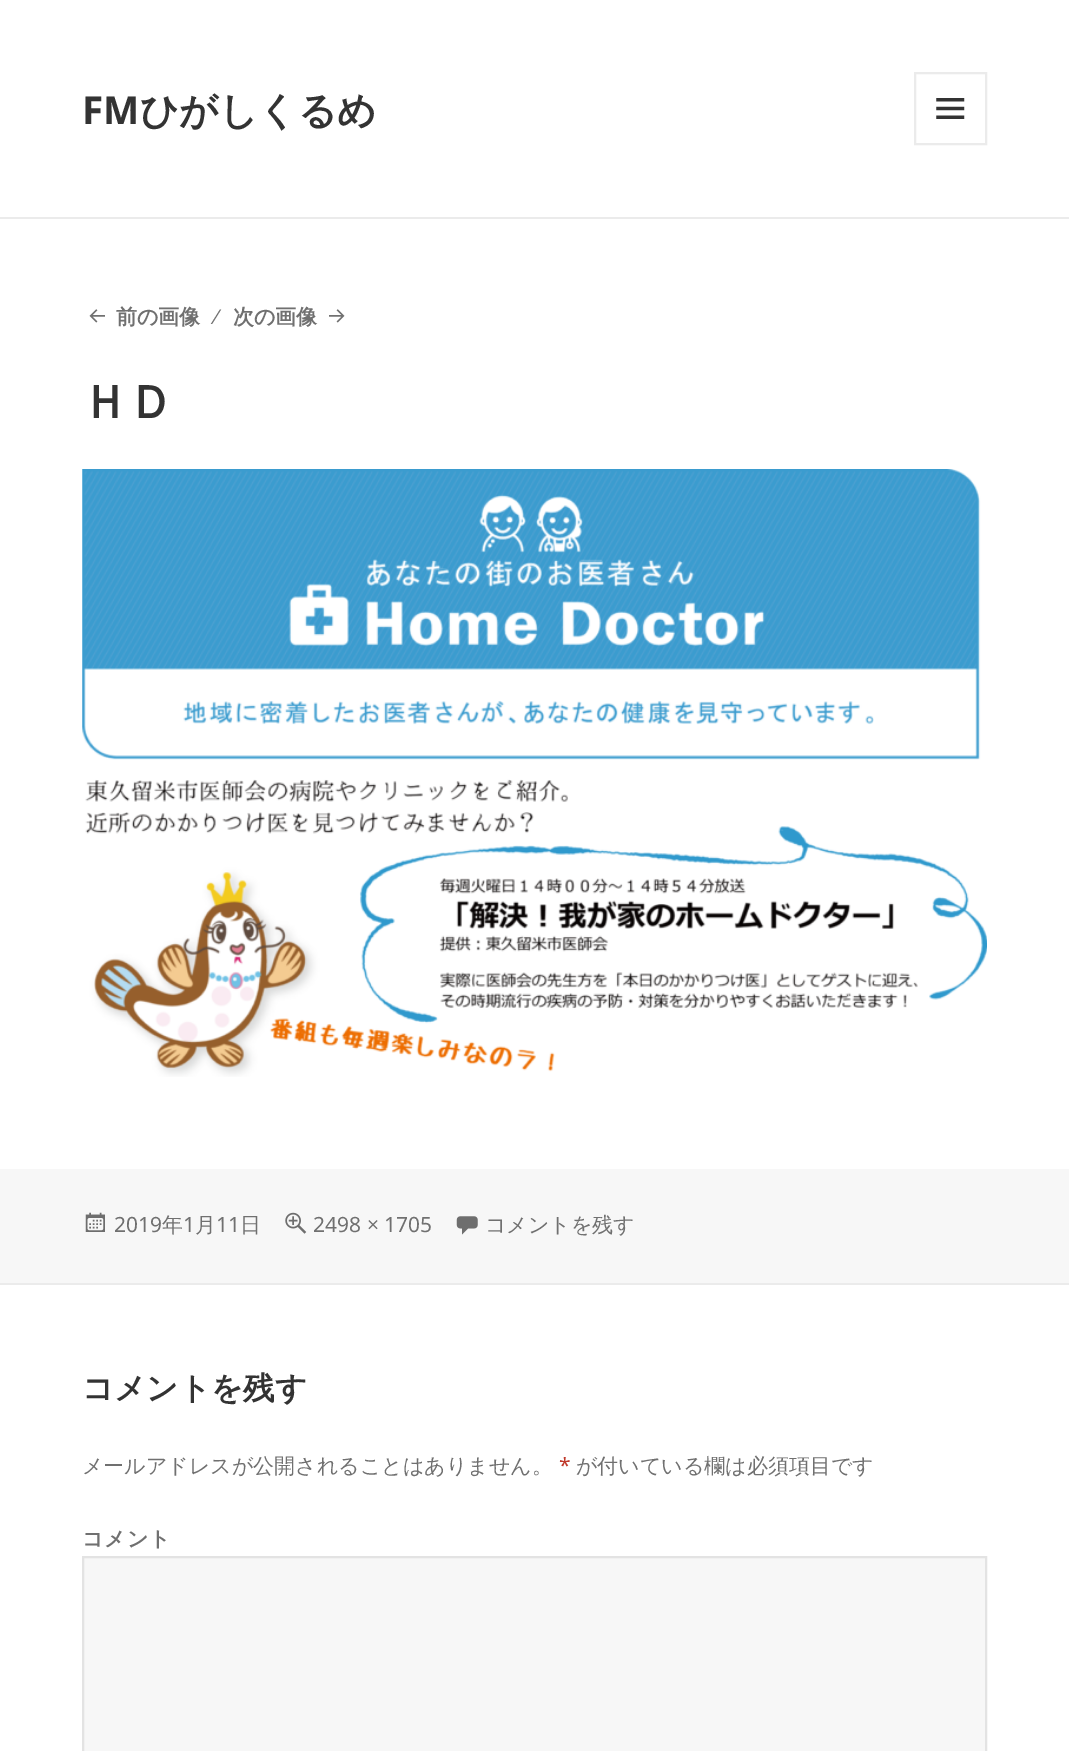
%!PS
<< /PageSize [1069 1751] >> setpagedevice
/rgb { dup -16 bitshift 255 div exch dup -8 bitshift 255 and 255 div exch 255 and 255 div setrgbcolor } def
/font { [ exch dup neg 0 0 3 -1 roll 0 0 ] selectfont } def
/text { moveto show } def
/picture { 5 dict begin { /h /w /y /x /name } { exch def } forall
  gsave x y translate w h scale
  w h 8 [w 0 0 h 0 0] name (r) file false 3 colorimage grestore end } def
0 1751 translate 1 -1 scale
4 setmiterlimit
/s1 { /NotoSans-Bold 38.5 font 16#333333 rgb } def
/s2 { /WenQuanYiZenHei-Bold 38.5 font 16#333333 rgb } def
/s3 { /WenQuanYiZenHei-Bold 21 font 16#707070 rgb } def
/s4 { /LiberationSans-Regular 21 font 16#707070 rgb } def
/s5 { /WenQuanYiZenHei-Bold 46 font 16#333333 rgb } def
/s6 { /NotoSans-Regular 21 font 16#707070 rgb } def
/s7 { /WenQuanYiZenHei-Medium 21 font 16#707070 rgb } def
/s8 { /WenQuanYiZenHei-Bold 31.5 font 16#333333 rgb } def
/s9 { /NotoSans-Regular 21 font 16#C0392B rgb } def
16#FFFFFF rgb
0 0 1069 1751 rectfill
16#EBEBEB rgb
0 217 1069 2 rectfill
s1
(FM) 82 124 text
s2
(ひがしくるめ) 140 124 text
16#EBEBEB rgb
2 setlinewidth
915 73 71 71 rectstroke
(pic1.raw) 936 98 29 21 picture
(pic2.raw) 89 309 16 14 picture
s3
(前の画像) 116 324 text
s4
(∕) 215 324 text
s3
(次の画像) 233 324 text
(pic3.raw) 329 309 16 14 picture
s5
(ＨＤ) 82 418 text
(pic4.raw) 82 469 905 608 picture
16#F7F7F7 rgb
0 1169 1069 114 rectfill
(pic5.raw) 85 1212 20 20 picture
s6
(2019) 114 1232 text
s7
(年) 162 1232 text
s6
(1) 183 1232 text
s7
(月) 195 1232 text
s6
(11) 216 1232 text
s7
(日) 240 1232 text
(pic6.raw) 285 1212 22 22 picture
s6
(2498 × 1705) 313 1232 text
(pic7.raw) 456 1216 22 19 picture
s7
(コメントを残す) 485 1232 text
16#EBEBEB rgb
0 1283 1069 2 rectfill
s8
(コメントを残す) 82 1399 text
s7
(メールアドレスが公開されることはありません。) 82 1473 text
s9
(*) 559 1473 text
s7
(が付いている欄は必須項目です) 576 1473 text
/WenQuanYiZenHei-Bold 21 font
82 1546 moveto 1 0 (コメント) ashow
16#F7F7F7 rgb
83 1557 moveto 986 1557 lineto 986 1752 lineto 83 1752 lineto closepath gsave fill grestore
16#E3E3E3 rgb
stroke
showpage
